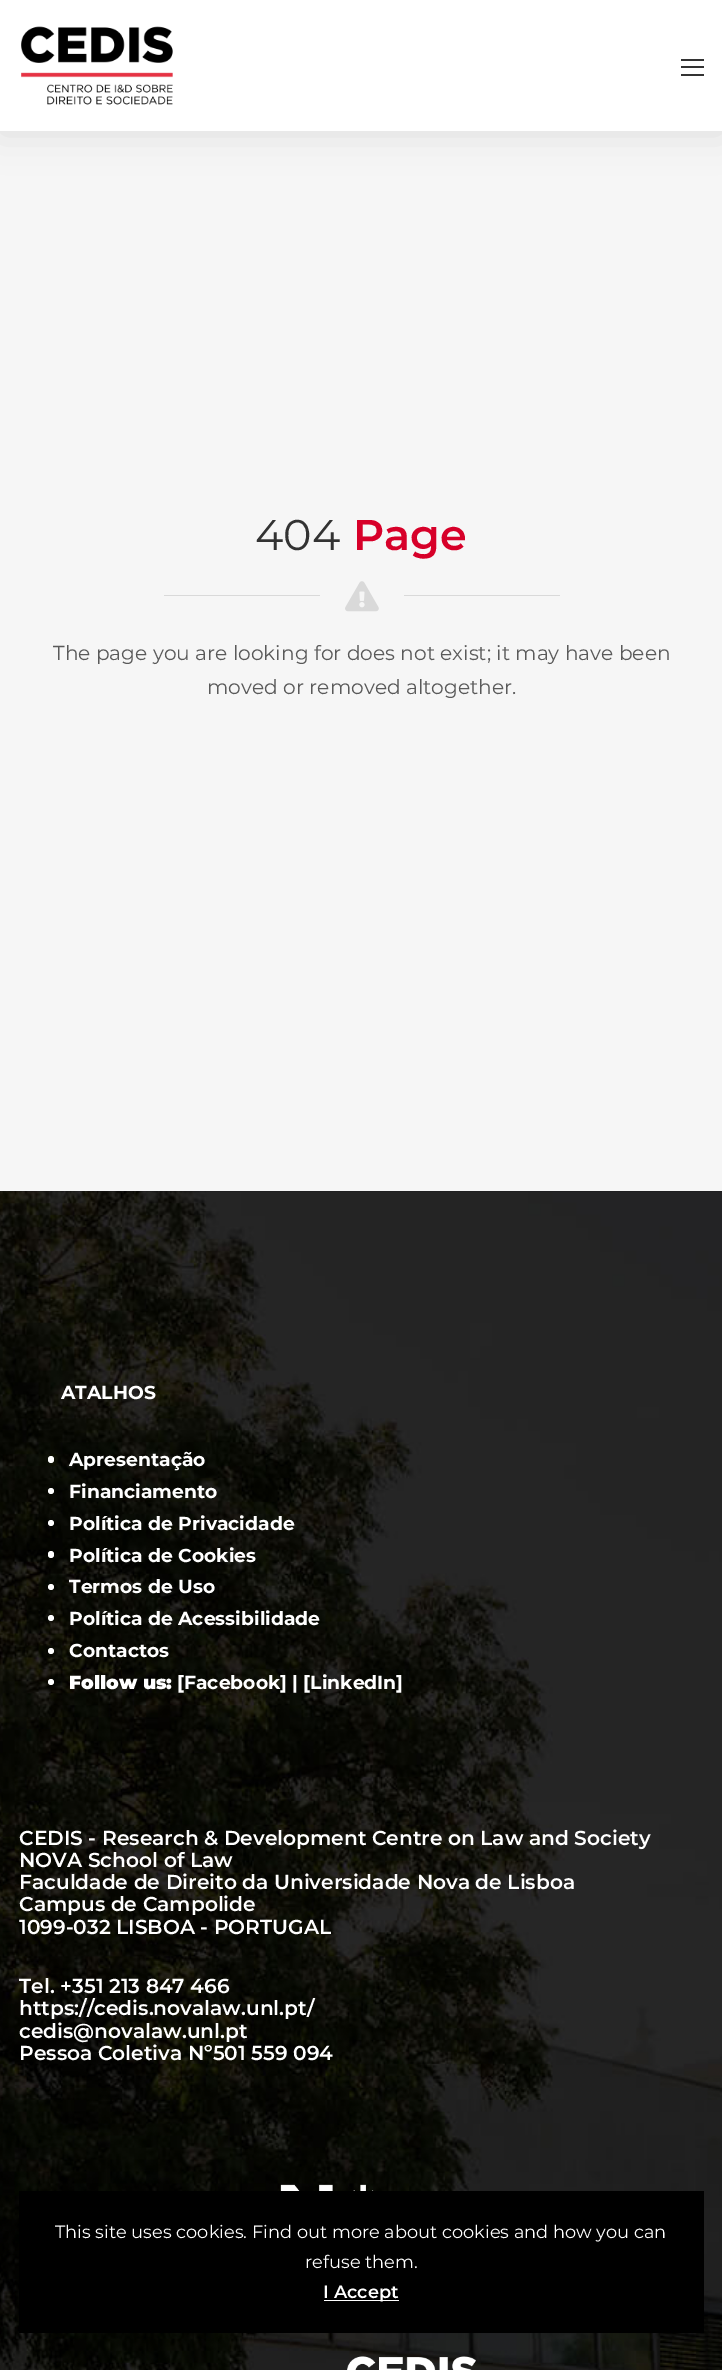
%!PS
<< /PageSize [722 2370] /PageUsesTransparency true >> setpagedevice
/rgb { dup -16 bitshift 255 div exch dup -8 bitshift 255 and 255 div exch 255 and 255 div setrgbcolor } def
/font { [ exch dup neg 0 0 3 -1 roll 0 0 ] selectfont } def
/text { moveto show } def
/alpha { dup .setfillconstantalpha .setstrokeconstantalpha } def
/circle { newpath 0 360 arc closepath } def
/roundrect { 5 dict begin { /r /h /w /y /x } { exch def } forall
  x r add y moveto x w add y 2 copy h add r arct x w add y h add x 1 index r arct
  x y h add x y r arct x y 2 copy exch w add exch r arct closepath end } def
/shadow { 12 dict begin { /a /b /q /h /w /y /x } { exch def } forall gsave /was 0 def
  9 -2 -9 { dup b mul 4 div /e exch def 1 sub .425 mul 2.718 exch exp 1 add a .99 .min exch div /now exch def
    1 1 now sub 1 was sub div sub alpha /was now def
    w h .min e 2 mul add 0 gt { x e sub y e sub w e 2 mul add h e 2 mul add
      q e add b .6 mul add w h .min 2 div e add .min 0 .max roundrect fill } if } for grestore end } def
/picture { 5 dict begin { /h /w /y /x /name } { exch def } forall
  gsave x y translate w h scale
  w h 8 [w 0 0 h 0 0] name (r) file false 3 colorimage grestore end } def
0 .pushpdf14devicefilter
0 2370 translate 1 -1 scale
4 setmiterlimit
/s1 { /Montserrat-Regular 43 font 16#333333 rgb } def
/s2 { /Montserrat-SemiBold 43 font 16#D70029 rgb } def
/s3 { /Montserrat-Regular 20.2 font 16#5A5A5A rgb } def
/s4 { /Montserrat-Bold 18.75 font 16#FFFFFF rgb } def
/s5 { /Montserrat-Black 18.75 font 16#FFFFFF rgb } def
/s6 { /Montserrat-SemiBold 20.2 font 16#FFFFFF rgb } def
/s7 { /Montserrat-Regular 17.8 font 16#FFFFFF rgb } def
/s8 { /Montserrat-SemiBold 17.8 font 16#FFFFFF rgb } def
16#F6F6F6 rgb
0 0 722 2370 rectfill
16#000000 rgb
0 1 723 132 0 19 0.1 shadow
16#FFFFFF rgb
0 0 722 131 rectfill
(pic1.raw) 21 26 152 79 picture
16#333333 rgb
681 59 23 2 rectfill
681 66 23 2 rectfill
681 74 23 2 rectfill
s1
(404) 255 550 text
s2
(Page) 353 550 text
16#D9D9D9 rgb
164 595 156 1 rectfill
(pic2.raw) 345 581 34 31 picture
404 595 156 1 rectfill
s3
(The page you are looking for does not exist; it may have been) 53 660 text
(moved or removed altogether.) 207 694 text
(pic3.raw) 0 1191 722 1179 picture
s4
(ATALHOS) 61 1399 text
48 1456 6 7 3 roundrect fill
(Apresentação) 69 1466 text
51 1491 3 circle fill
(Financiamento) 69 1498 text
51 1523 3 circle fill
(Política de Privacidade) 69 1530 text
48 1551 6 7 3 roundrect fill
(Política de Cookies) 69 1562 text
51 1587 3 circle fill
(Termos de Uso) 69 1593 text
51 1618 3 circle fill
(Política de Acessibilidade) 69 1625 text
51 1651 3 circle fill
(Contactos) 69 1657 text
51 1682 3 circle fill
s5
(Follow us:) 69 1689 text
s4
([Facebook] | [LinkedIn]) 177 1689 text
s6
(CEDIS - Research & Development Centre on Law and Society) 19 1845 text
(NOVA School of Law) 19 1867 text
(Faculdade de Direito da Universidade Nova de Lisboa) 19 1889 text
(Campus de Campolide) 19 1911 text
(1099-032 LISBOA - PORTUGAL) 19 1934 text
(Tel. +351 213 847 466) 19 1993 text
(https://cedis.novalaw.unl.pt/) 19 2015 text
(cedis@novalaw.unl.pt) 19 2038 text
(Pessoa Coletiva Nº501 559 094) 19 2060 text
(pic4.raw) 280 2184 94 7 picture
(pic5.raw) 347 2356 129 14 picture
16#000000 rgb
19 2191 685 142 rectfill
s7
(This site uses cookies. Find out more about cookies and how you can) 55 2238 text
(refuse them.) 305 2268 text
324 2300 75 1 rectfill
s8
(I Accept) 323 2298 text
.poppdf14devicefilter showpage
